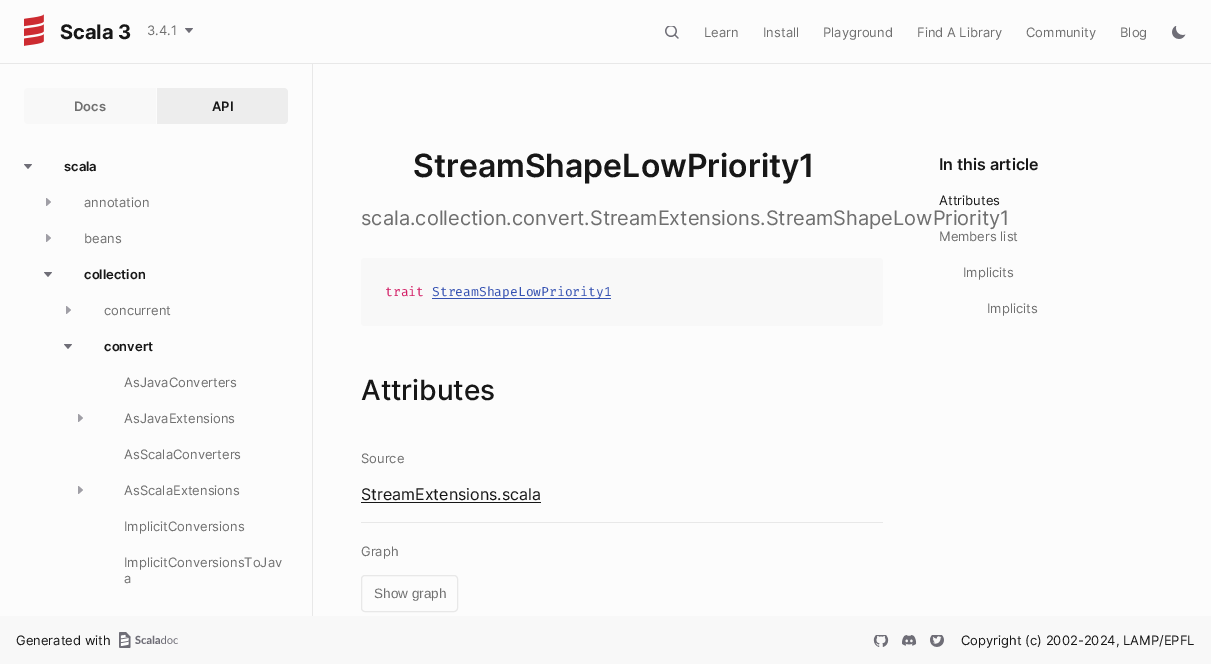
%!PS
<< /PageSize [1211 664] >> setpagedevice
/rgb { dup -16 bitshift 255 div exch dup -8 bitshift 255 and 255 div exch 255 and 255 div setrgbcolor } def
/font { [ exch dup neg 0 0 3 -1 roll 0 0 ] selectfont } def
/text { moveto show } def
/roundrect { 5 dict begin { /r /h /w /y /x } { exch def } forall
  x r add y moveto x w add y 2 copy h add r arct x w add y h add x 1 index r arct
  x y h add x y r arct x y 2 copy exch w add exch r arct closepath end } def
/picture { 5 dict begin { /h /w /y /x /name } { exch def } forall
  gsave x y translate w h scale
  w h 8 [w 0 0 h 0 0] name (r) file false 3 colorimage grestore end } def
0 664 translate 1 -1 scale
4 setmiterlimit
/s1 { /Inter-Bold 20 font 16#171717 rgb } def
/s2 { /Inter-Regular 13 font 16#6F6F6F rgb } def
/s3 { /Inter-SemiBold 13 font 16#6F6F6F rgb } def
/s4 { /Inter-SemiBold 13 font 16#171717 rgb } def
/s5 { /Inter-SemiBold 32 font 16#171717 rgb } def
/s6 { /Inter-Regular 20 font 16#6F6F6F rgb } def
/s7 { /FiraCode-Regular 13 font 16#D31E66 rgb } def
/s8 { /FiraCode-Regular 13 font 16#3451B2 rgb } def
/s9 { /Inter-Medium 28 font 16#171717 rgb } def
/s10 { /Inter-Regular 16 font 16#171717 rgb } def
/s11 { /LiberationSans-Regular 13.5 font 16#6F6F6F rgb } def
/s12 { /Inter-SemiBold 16 font 16#171717 rgb } def
/s13 { /Inter-Regular 13 font 16#171717 rgb } def
16#FCFCFC rgb
0 0 1211 664 rectfill
16#E8E8E8 rgb
0 63 1211 1 rectfill
(pic1.raw) 24 14 20 32 picture
s1
(Scala 3) 60 39 text
s2
(3.4.1) 147 35 text
(pic2.raw) 185 28 8 5 picture
(pic3.raw) 665 26 14 13 picture
(Learn) 704 37 text
(Install) 763 37 text
(Playground) 823 37 text
(Find A Library) 917 37 text
(Community) 1026 37 text
(Blog) 1120 37 text
(pic4.raw) 1172 26 14 13 picture
16#E8E8E8 rgb
312 64 1 553 rectfill
16#F8F8F8 rgb
28 88 moveto 156 88 lineto 156 124 lineto 28 124 lineto 26 124 24 122 24 120 curveto 24 92 lineto 24 90 26 88 28 88 curveto closepath fill
s3
(Docs) 74 111 text
16#EDEDED rgb
157 88 moveto 284 88 lineto 286 88 288 90 288 92 curveto 288 120 lineto 288 122 286 124 284 124 curveto 157 124 lineto closepath fill
s4
(API) 212 111 text
(pic5.raw) 24 164 8 5 picture
(scala) 64 171 text
(pic6.raw) 46 198 5 8 picture
s2
(annotation) 84 207 text
(pic6.raw) 46 234 5 8 picture
(beans) 84 243 text
(pic5.raw) 44 272 8 5 picture
s4
(collection) 84 279 text
(pic6.raw) 66 306 5 8 picture
s2
(concurrent) 104 315 text
(pic5.raw) 64 344 8 5 picture
s4
(convert) 104 351 text
s2
(AsJavaConverters) 124 387 text
(pic6.raw) 78 414 5 8 picture
(AsJavaExtensions) 124 423 text
(AsScalaConverters) 124 459 text
(pic6.raw) 78 486 5 8 picture
(AsScalaExtensions) 124 495 text
(ImplicitConversions) 124 531 text
(ImplicitConversionsToJav) 124 567 text
(a) 124 583 text
s5
(StreamShapeLowPriority1) 413 177 text
s6
(scala.collection.convert.StreamExtensions.StreamShapeLowPriority1) 361 225 text
16#F8F8F8 rgb
361 258 522 68 4 roundrect fill
s7
(trait) 385 296 text
16#3451B2 rgb
432 298 179 1 rectfill
(StreamShapeLowPriority1) 432 296 text
s9
(Attributes) 361 400 text
s2
(Source) 361 463 text
s10
(StreamExtensions.scala) 361 500 text
361 502 180 1 rectfill
16#E8E8E8 rgb
361 522 522 1 rectfill
s2
(Graph) 361 556 text
16#E8E8E8 rgb
361.5 575.5 96 36 3.5 roundrect stroke
s11
(Show graph) 374 598 text
s12
(In this article) 939 170 text
s13
(Attributes) 939 205 text
s2
(Members list) 939 241 text
(Implicits) 963 277 text
(Implicits) 987 313 text
16#F8F8F8 rgb
0 616 1211 48 rectfill
s13
(Generated with) 16 645 text
(pic7.raw) 119 632 59 16 picture
(pic8.raw) 873 635 16 12 picture
(pic9.raw) 902 635 15 11 picture
(pic10.raw) 930 635 14 12 picture
(Copyright \(c\) 2002-2024, LAMP/EPFL) 961 645 text
showpage
